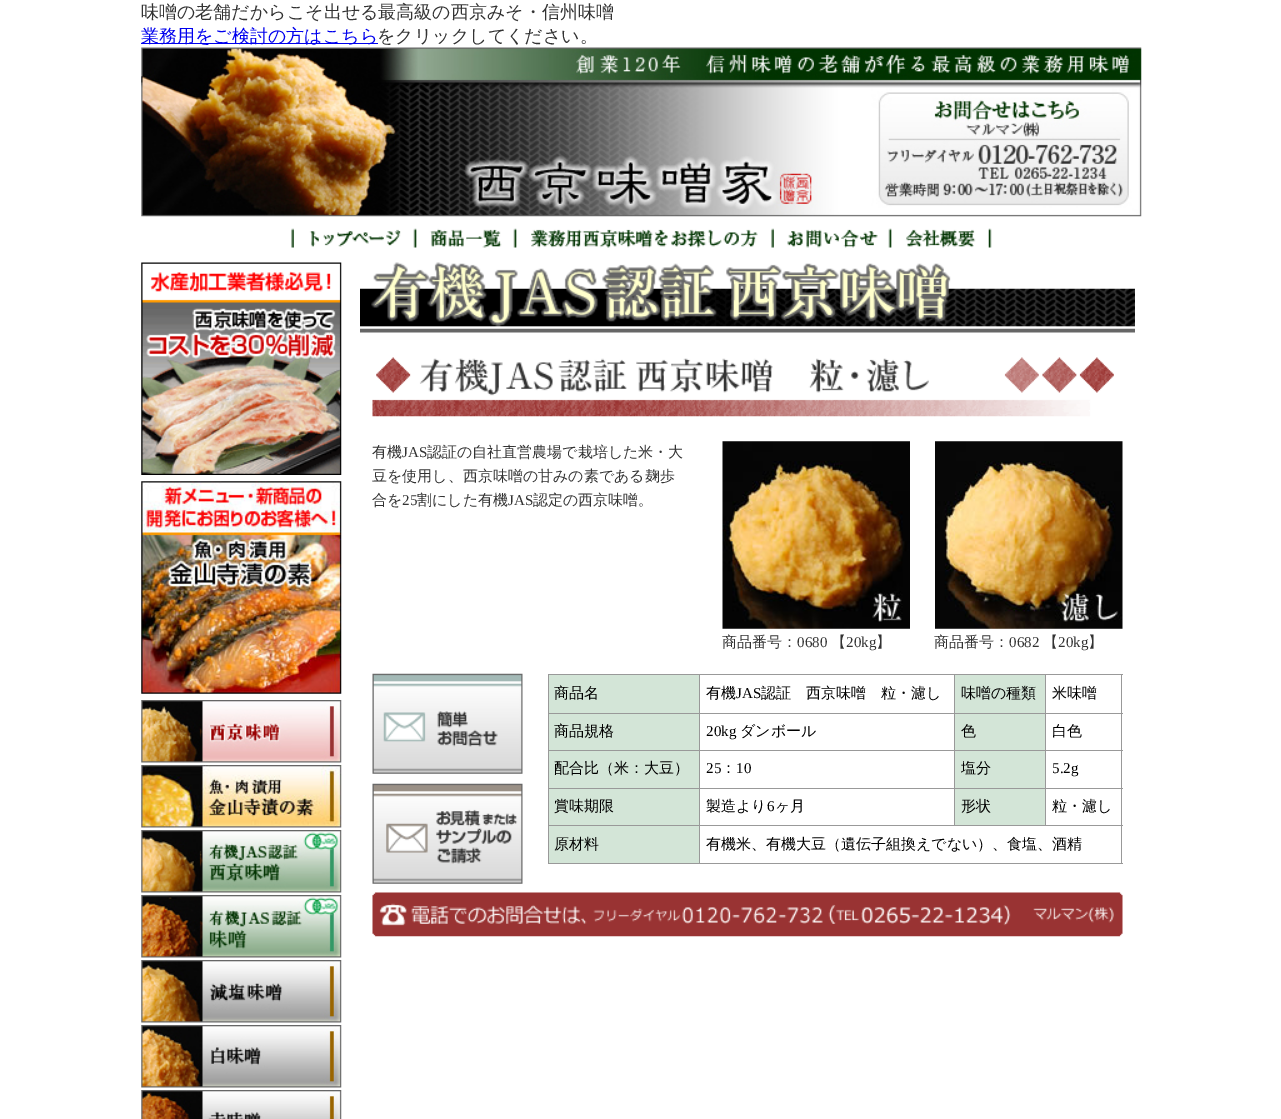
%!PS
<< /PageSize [1281 1119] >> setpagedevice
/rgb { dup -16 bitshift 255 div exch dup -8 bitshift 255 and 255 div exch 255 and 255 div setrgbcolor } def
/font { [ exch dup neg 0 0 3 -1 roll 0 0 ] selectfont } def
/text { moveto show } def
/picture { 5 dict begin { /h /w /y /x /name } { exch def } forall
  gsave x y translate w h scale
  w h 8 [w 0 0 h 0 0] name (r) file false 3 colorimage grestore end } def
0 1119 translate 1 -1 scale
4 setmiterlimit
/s1 { /WenQuanYiZenHei-Medium 18 font 16#333333 rgb } def
/s2 { /WenQuanYiZenHei-Medium 18 font 16#0000EE rgb } def
/s3 { /WenQuanYiZenHei-Medium 15 font 16#333333 rgb } def
/s4 { /LiberationSerif-Regular 15 font 16#333333 rgb } def
/s5 { /WenQuanYiZenHei-Medium 15 font 16#000000 rgb } def
/s6 { /LiberationSerif-Regular 15 font 16#000000 rgb } def
16#FFFFFF rgb
0 0 1281 1119 rectfill
s1
(味噌の老舗だからこそ出せる最高級の西京みそ・信州味噌) 141 18 text
16#0000EE rgb
141 43 237 1 rectfill
(業務用をご検討の方はこちら) 141 42 text
s1
(をクリックしてください。) 377 42 text
(pic1.raw) 141 47 1001 170 picture
(pic2.raw) 291 228 110 20 picture
(pic3.raw) 413 228 89 20 picture
(pic4.raw) 513 228 245 20 picture
(pic5.raw) 771 228 107 20 picture
(pic6.raw) 888 228 104 20 picture
(pic7.raw) 141 262 201 213 picture
(pic8.raw) 141 481 201 213 picture
(pic9.raw) 141 700 201 63 picture
(pic10.raw) 141 765 201 63 picture
(pic11.raw) 141 830 201 63 picture
(pic12.raw) 141 895 201 63 picture
(pic13.raw) 141 960 201 63 picture
(pic14.raw) 141 1025 201 63 picture
(pic15.raw) 141 1090 201 29 picture
(pic16.raw) 360 262 775 71 picture
(pic17.raw) 372 357 742 60 picture
s3
(有機) 372 457 text
s4
(JAS) 402 457 text
s3
(認証の自社直営農場で栽培した米・大) 427 457 text
(豆を使用し、西京味噌の甘みの素である麹歩) 372 481 text
(合を) 372 505 text
s4
(25) 402 505 text
s3
(割にした有機) 417 505 text
s4
(JAS) 508 505 text
s3
(認定の西京味噌。) 533 505 text
(pic18.raw) 722 441 188 188 picture
(商品番号：) 722 647 text
s4
(0680) 797 647 text
s3
(【) 831 647 text
s4
(20kg) 846 647 text
s3
(】) 876 647 text
(pic19.raw) 935 441 188 188 picture
(商品番号：) 934 647 text
s4
(0682) 1009 647 text
s3
(【) 1043 647 text
s4
(20kg) 1058 647 text
s3
(】) 1088 647 text
(pic20.raw) 372 673 151 101 picture
(pic21.raw) 372 783 151 101 picture
16#999999 rgb
548 674 575 1 rectfill
1121 674 1 190 rectfill
548 863 575 1 rectfill
548 674 1 190 rectfill
16#D3E5D7 rgb
549 675 150 38 rectfill
s5
(商品名) 554 698 text
16#999999 rgb
1045 713 78 1 rectfill
1045 750 78 1 rectfill
1045 788 78 1 rectfill
699 825 424 1 rectfill
1045 788 1 38 rectfill
954 788 92 1 rectfill
1045 750 1 39 rectfill
954 750 92 1 rectfill
1045 713 1 38 rectfill
954 713 92 1 rectfill
954 788 1 38 rectfill
699 788 256 1 rectfill
954 750 1 39 rectfill
699 750 256 1 rectfill
954 713 1 38 rectfill
699 713 256 1 rectfill
699 825 1 39 rectfill
548 825 152 1 rectfill
699 788 1 38 rectfill
548 788 152 1 rectfill
699 750 1 39 rectfill
548 750 152 1 rectfill
699 713 1 38 rectfill
548 713 152 1 rectfill
699 674 1 40 rectfill
s5
(有機) 706 698 text
s6
(JAS) 736 698 text
s5
(認証　西京味噌　粒・濾し) 761 698 text
16#D3E5D7 rgb
955 675 90 38 rectfill
16#999999 rgb
954 674 1 40 rectfill
s5
(味噌の種類) 961 698 text
16#999999 rgb
1045 674 1 40 rectfill
s5
(米味噌) 1052 698 text
16#D3E5D7 rgb
549 714 150 36 rectfill
s5
(商品規格) 554 736 text
s6
(20kg) 706 736 text
s5
(ダンボール) 740 736 text
16#D3E5D7 rgb
955 714 90 36 rectfill
s5
(色) 961 736 text
(白色) 1052 736 text
16#D3E5D7 rgb
549 751 150 37 rectfill
s5
(配合比（米：大豆）) 554 773 text
s6
(25) 706 773 text
s5
(：) 721 773 text
s6
(10) 736 773 text
16#D3E5D7 rgb
955 751 90 37 rectfill
s5
(塩分) 961 773 text
s6
(5.2g) 1052 773 text
16#D3E5D7 rgb
549 789 150 36 rectfill
s5
(賞味期限) 554 811 text
(製造より) 706 811 text
s6
(6) 767 811 text
s5
(ヶ月) 775 811 text
16#D3E5D7 rgb
955 789 90 36 rectfill
s5
(形状) 961 811 text
(粒・濾し) 1052 811 text
16#D3E5D7 rgb
549 826 150 37 rectfill
s5
(原材料) 554 849 text
(有機米、有機大豆（遺伝子組換えでない）、食塩、酒精) 706 849 text
(pic22.raw) 372 892 751 45 picture
showpage
